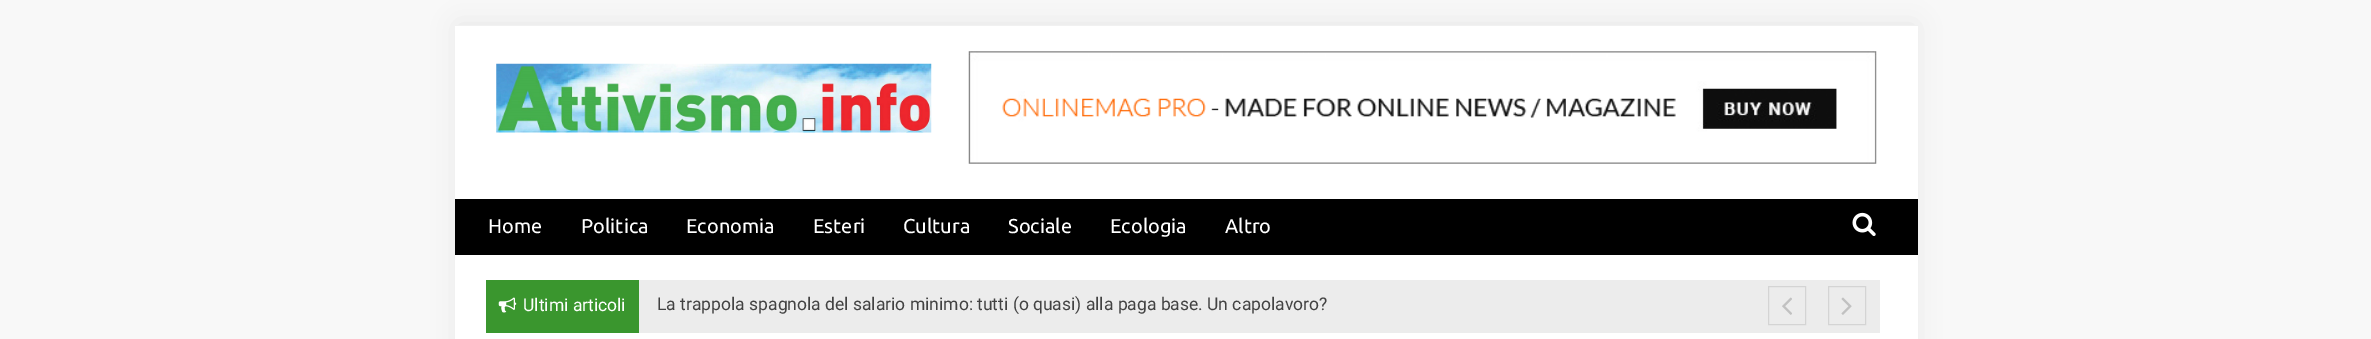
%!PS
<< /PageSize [2371 339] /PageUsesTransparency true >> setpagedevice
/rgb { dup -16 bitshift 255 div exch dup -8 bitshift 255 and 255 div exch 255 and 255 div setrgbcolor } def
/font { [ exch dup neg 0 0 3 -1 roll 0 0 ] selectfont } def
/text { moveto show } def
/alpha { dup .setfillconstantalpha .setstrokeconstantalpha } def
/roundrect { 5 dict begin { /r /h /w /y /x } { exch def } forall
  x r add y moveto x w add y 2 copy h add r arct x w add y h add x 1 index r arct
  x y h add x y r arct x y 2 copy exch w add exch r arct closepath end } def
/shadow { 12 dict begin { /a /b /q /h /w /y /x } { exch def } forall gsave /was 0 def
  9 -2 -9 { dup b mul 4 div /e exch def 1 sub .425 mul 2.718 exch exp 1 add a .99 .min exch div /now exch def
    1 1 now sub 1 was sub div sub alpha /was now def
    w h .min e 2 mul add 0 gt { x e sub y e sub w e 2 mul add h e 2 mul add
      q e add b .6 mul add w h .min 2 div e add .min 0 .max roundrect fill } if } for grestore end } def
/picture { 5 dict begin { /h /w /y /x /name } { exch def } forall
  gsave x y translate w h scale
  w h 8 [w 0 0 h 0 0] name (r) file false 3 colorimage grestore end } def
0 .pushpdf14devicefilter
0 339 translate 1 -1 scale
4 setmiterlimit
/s1 { /Ubuntu-Regular 20 font 16#FFFFFF rgb } def
/s2 { /Roboto-Regular 17.5 font 16#FFFFFF rgb } def
/s3 { /Roboto-Regular 17.5 font 16#424242 rgb } def
16#F8F8F8 rgb
0 0 2371 339 rectfill
16#000000 rgb
458 25 1457 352 0 12.5 0.07 shadow
16#FFFFFF rgb
455 26 1463 313 rectfill
16#F1F1F1 rgb
455 25 1463 1 rectfill
(pic1.raw) 496 63 436 70 picture
(pic2.raw) 968 51 909 113 picture
16#000000 rgb
455 199 1463 56 rectfill
s1
(Home) 488 233 text
(Politica) 581 233 text
(Economia) 686 233 text
(Esteri) 813 233 text
(Cultura) 903 233 text
(Sociale) 1008 233 text
(Ecologia) 1110 233 text
(Altro) 1225 233 text
(pic3.raw) 1852 212 24 24 picture
16#ECECEC rgb
639 280 1241 53 rectfill
16#3A962E rgb
486 280 153 53 rectfill
(pic4.raw) 498 297 19 16 picture
s2
(Ultimi articoli) 523 311 text
s3
(La trappola spagnola del salario minimo: tutti \(o quasi\) alla paga base. Un capolavoro?) 657 310 text
16#D4D4D4 rgb
1768.5 286.5 37 38 rectstroke
(pic5.raw) 1782 297 10 18 picture
1828.5 286.5 37 38 rectstroke
(pic6.raw) 1841 297 11 18 picture
.poppdf14devicefilter showpage
